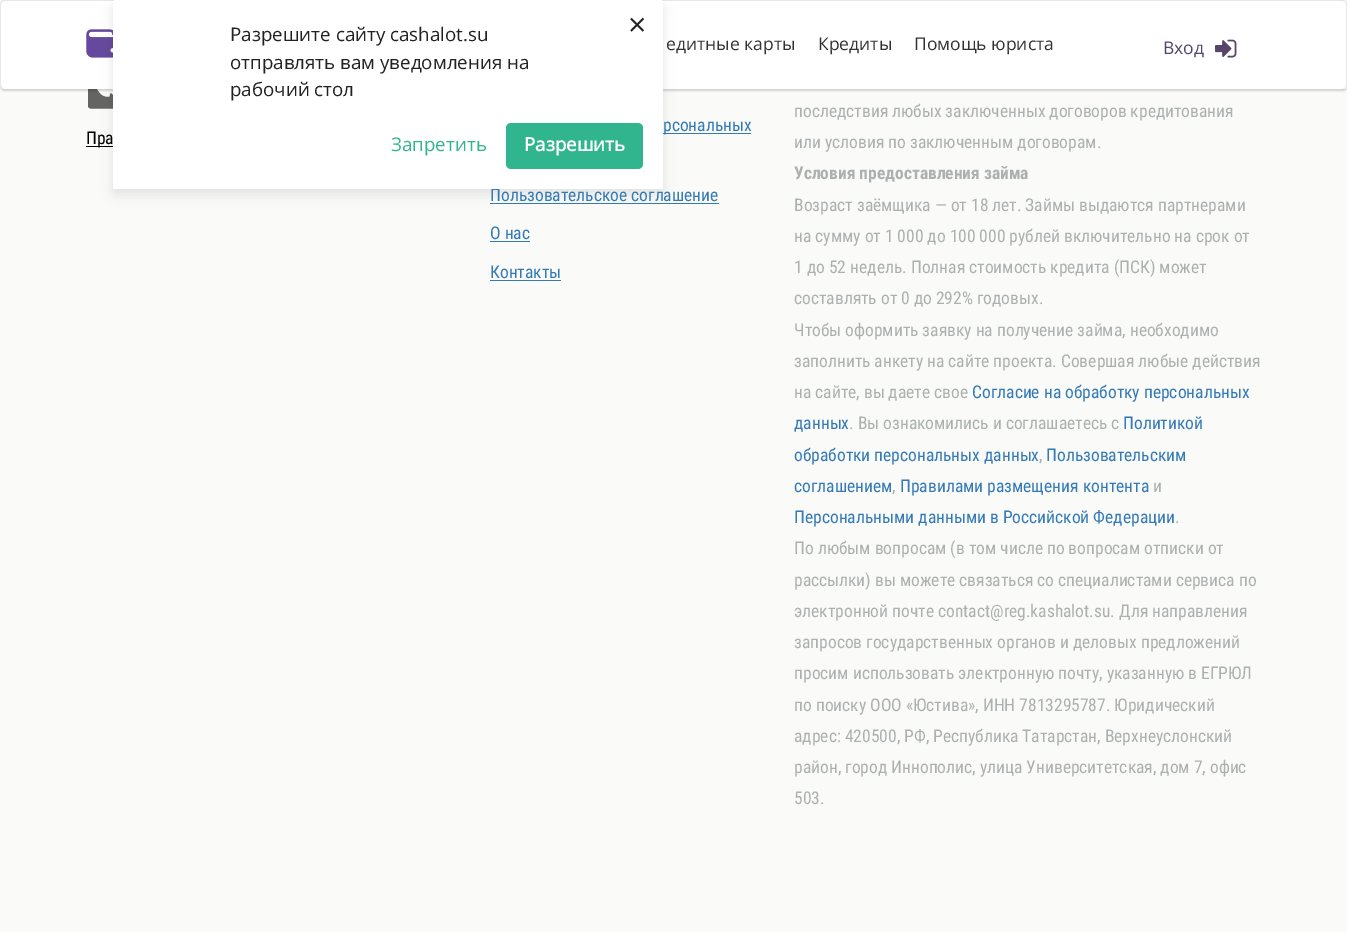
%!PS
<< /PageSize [1347 932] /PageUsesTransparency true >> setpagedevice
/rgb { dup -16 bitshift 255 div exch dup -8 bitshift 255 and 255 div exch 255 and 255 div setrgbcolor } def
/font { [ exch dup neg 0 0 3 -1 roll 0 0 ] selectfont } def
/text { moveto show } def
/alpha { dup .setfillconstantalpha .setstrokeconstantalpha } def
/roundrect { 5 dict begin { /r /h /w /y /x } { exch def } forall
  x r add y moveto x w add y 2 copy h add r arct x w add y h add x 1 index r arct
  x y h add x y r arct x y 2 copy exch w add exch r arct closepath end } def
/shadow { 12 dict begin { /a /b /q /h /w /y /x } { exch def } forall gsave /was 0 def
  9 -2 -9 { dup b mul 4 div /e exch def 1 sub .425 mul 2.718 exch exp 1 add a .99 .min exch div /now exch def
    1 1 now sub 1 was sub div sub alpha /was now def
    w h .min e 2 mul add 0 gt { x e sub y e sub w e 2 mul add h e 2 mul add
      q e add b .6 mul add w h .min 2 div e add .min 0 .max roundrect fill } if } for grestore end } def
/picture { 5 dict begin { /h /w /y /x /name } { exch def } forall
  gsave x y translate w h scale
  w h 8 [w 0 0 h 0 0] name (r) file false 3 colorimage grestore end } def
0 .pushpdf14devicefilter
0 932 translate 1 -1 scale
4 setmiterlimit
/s1 { /RobotoCondensed-Regular 17.5 font 16#000000 rgb } def
/s2 { /RobotoCondensed-Regular 17.5 font 16#337AB7 rgb } def
/s3 { /OpenSans-Regular 32 font 16#222222 rgb } def
/s4 { /OpenSans-Regular 18.75 font 16#222222 rgb } def
/s5 { /OpenSans-Regular 18.75 font 16#31B58E rgb } def
/s6 { /OpenSans-Bold 18.75 font 16#FFFFFF rgb } def
/s7 { /OpenSans-Regular 17.5 font 16#333333 rgb } def
/s8 { /OpenSans-Regular 17.5 font 16#57456A rgb } def
/s9 { /RobotoCondensed-Regular 17.5 font 16#ABB1B1 rgb } def
/s10 { /RobotoCondensed-Bold 17.5 font 16#ABB1B1 rgb } def
16#FAFAF8 rgb
0 0 1347 932 rectfill
(pic3.raw) 88 89 25 20 picture
16#000000 rgb
0 3 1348 88 5 1 0.16 shadow
16#FFFFFF rgb
0 0 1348 89 5 roundrect fill
16#E7E7E7 rgb
5 0 moveto 1342 0 lineto 1345 0 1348 2 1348 5 curveto 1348 84 lineto 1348 87 1345 89 1342 89 curveto 5 89 lineto 2 89 0 87 0 84 curveto 0 5 lineto 0 2 2 0 5 0 curveto closepath 5 1 moveto 1342 1 lineto 1345 1 1346 3 1346 5 curveto 1346 84 lineto 1346 87 1345 89 1342 89 curveto 5 89 lineto 3 89 1 87 1 84 curveto 1 5 lineto 1 3 3 1 5 1 curveto closepath eofill
(pic1.raw) 86 29 27 29 picture
16#000000 rgb
86 146 27 1 rectfill
16#337AB7 rgb
663 133 88 1 rectfill
490 203 229 1 rectfill
16#000000 rgb
113 5 550 189 2.5 6 0.1 shadow
s1
(Пра) 86 144 text
s2
(Пользовательское соглашение) 490 201 text
16#FFFFFF rgb
113 0 550 189 2.5 roundrect fill
s3
(×) 628 36 text
s4
(Разрешите сайту cashalot.su) 230 41 text
(отправлять вам уведомления на) 230 69 text
(рабочий стол) 230 96 text
s5
(Запретить) 391 151 text
506 123 137 46 5 roundrect fill
s6
(Разрешить) 524 151 text
s7
(едитные карты) 666 50 text
(Кредиты) 818 50 text
(Помощь юриста) 914 50 text
s8
(Вход) 1163 54 text
(pic2.raw) 1215 39 22 19 picture
s2
(рсональных) 663 131 text
(О нас) 490 239 text
490 241 40 1 rectfill
(Контакты) 490 278 text
490 280 71 1 rectfill
s9
(последствия любых заключенных договоров кредитования) 794 117 text
(или условия по заключенным договорам.) 794 148 text
s10
(Условия предоставления займа) 794 179 text
s9
(Возраст заёмщика — от 18 лет. Займы выдаются партнерами) 794 211 text
(на сумму от 1 000 до 100 000 рублей включительно на срок от) 794 242 text
(1 до 52 недель. Полная стоимость кредита \(ПСК\) может) 794 273 text
(составлять от 0 до 292% годовых.) 794 304 text
(Чтобы оформить заявку на получение займа, необходимо) 794 336 text
(заполнить анкету на сайте проекта. Совершая любые действия) 794 367 text
(на сайте, вы даете свое) 794 398 text
s2
(Согласие на обработку персональных) 972 398 text
(данных) 794 429 text
s9
(. Вы ознакомились и соглашаетесь с) 849 429 text
s2
(Политикой) 1123 429 text
(обработки персональных данных) 794 461 text
s9
(,) 1039 461 text
s2
(Пользовательским) 1046 461 text
(соглашением) 794 492 text
(Правилами размещения контента) 900 492 text
s9
(и) 1153 492 text
(,) 892 492 text
s2
(Персональными данными в Российской Федерации) 794 523 text
s9
(.) 1175 523 text
(По любым вопросам \(в том числе по вопросам отписки от) 794 554 text
(рассылки\) вы можете связаться со специалистами сервиса по) 794 586 text
(электронной почте contact@reg.kashalot.su. Для направления) 794 617 text
(запросов государственных органов и деловых предложений) 794 648 text
(просим использовать электронную почту, указанную в ЕГРЮЛ) 794 679 text
(по поиску ООО «Юстива», ИНН 7813295787. Юридический) 794 711 text
(адрес: 420500, РФ, Республика Татарстан, Верхнеуслонский) 794 742 text
(район, город Иннополис, улица Университетская, дом 7, офис) 794 773 text
(503.) 794 804 text
.poppdf14devicefilter showpage
